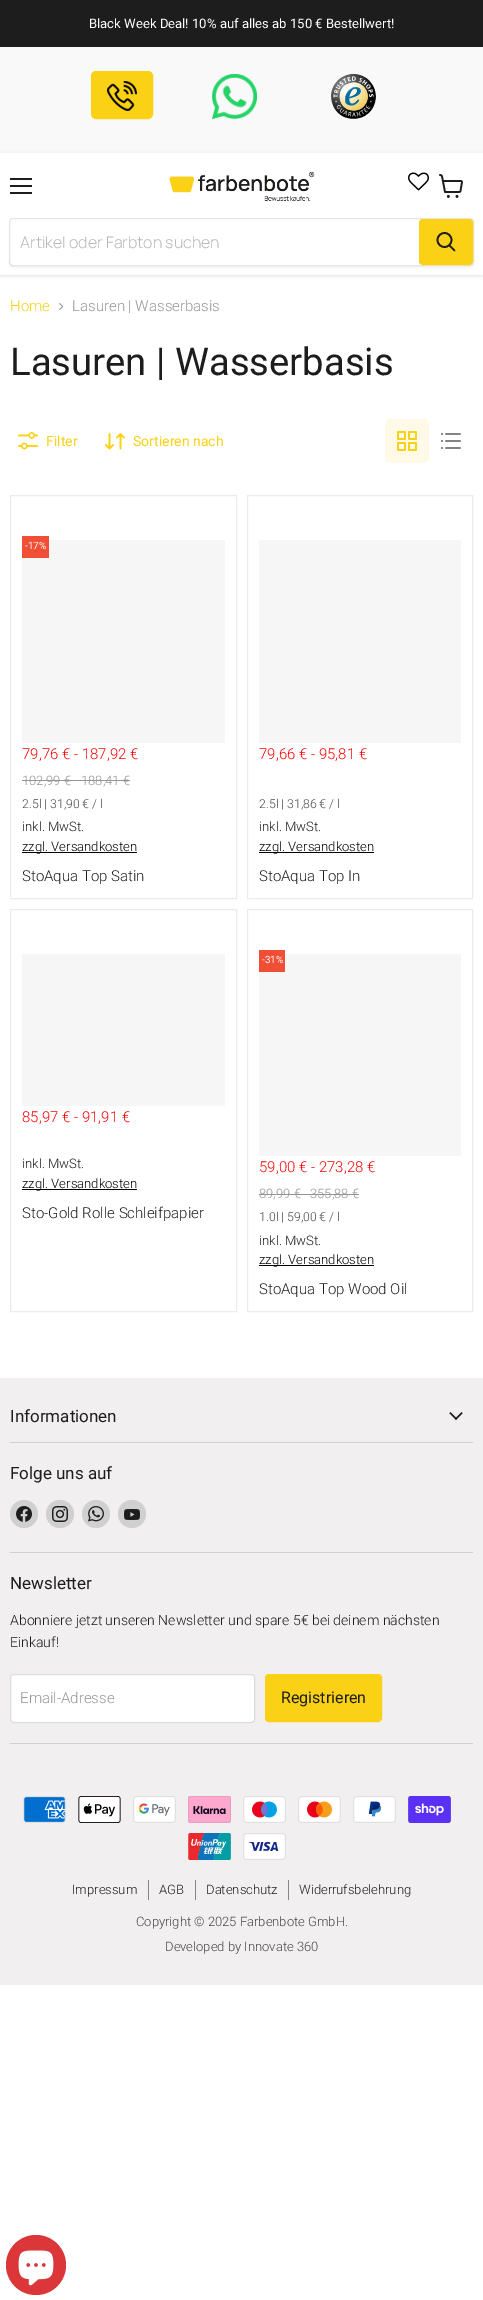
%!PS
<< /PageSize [483 2300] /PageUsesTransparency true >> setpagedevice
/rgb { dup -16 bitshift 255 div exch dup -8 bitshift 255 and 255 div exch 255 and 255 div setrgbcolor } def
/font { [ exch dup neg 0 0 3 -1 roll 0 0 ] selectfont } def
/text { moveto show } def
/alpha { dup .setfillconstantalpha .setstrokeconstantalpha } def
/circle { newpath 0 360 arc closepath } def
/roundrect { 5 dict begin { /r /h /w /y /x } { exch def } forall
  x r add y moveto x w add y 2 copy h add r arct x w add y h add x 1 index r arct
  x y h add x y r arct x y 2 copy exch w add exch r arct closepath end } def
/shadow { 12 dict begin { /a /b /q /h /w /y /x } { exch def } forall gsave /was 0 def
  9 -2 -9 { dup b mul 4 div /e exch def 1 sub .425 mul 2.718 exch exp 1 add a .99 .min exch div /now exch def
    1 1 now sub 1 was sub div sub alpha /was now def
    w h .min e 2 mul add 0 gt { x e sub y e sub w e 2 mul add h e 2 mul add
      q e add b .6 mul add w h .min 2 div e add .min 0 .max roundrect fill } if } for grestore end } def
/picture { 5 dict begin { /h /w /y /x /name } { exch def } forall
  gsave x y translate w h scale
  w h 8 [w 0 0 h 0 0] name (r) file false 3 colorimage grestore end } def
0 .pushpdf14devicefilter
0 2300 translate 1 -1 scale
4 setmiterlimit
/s1 { /Roboto-Regular 13.1 font 16#FFFFFF rgb } def
/s2 { /Manrope-ExtraLight 16 font 16#B8B8B8 rgb } def
/s3 { /Roboto-Light 15 font 16#FAD115 rgb } def
/s4 { /Roboto-Light 15 font 16#949494 rgb } def
/s5 { /Roboto-Regular 38.25 font 16#1D1D1D rgb } def
/s6 { /Roboto-Regular 14.05 font 16#FAD115 rgb } def
/s7 { /Roboto-Regular 10 font 16#FFFFFF rgb } def
/s8 { /Roboto-Light 15 font 16#FF0000 rgb } def
/s9 { /Roboto-Light 13 font 16#949494 rgb } def
/s10 { /Roboto-Light 12.25 font 16#474747 rgb } def
/s11 { /Roboto-Light 13.1 font 16#1D1D1D rgb } def
/s12 { /Roboto-Light 13.1 font 16#000000 rgb } def
/s13 { /Roboto-Light 15 font 16#1D1D1D rgb } def
/s14 { /Roboto-Regular 17 font 16#1D1D1D rgb } def
/s15 { /Roboto-Light 14.05 font 16#1D1D1D rgb } def
/s16 { /Roboto-Regular 16 font 16#1D1D1D rgb } def
/s17 { /Roboto-Light 13 font 16#1D1D1D rgb } def
/s18 { /Roboto-Light 13 font 16#474747 rgb } def
16#FFFFFF rgb
0 0 483 2300 rectfill
16#1D1D1D rgb
0 0 483 47 rectfill
s1
(Black Week Deal! 10% auf alles ab 150 € Bestellwert!) 89 28 text
16#F9F9F9 rgb
0 47 483 106 rectfill
16#FAD115 rgb
91.5 71.5 61 47 4.5 roundrect gsave fill grestore
stroke
(pic1.raw) 107 81 30 30 picture
(pic2.raw) 212 74 45 45 picture
(pic3.raw) 331 74 45 45 picture
gsave
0 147 moveto 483 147 lineto 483 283 lineto 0 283 lineto closepath 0 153 moveto 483 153 lineto 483 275 lineto 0 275 lineto closepath eoclip newpath
16#808080 rgb
0 154 483 122 0 2 0.25 shadow
grestore
16#1D1D1D rgb
10 178 22 2 rectfill
10 185 22 2 rectfill
10 192 22 2 rectfill
(pic4.raw) 408 172 21 19 picture
(pic5.raw) 439 174 24 24 picture
(pic6.raw) 169 171 146 31 picture
gsave
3 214 moveto 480 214 lineto 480 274 lineto 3 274 lineto closepath 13 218 moveto 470 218 lineto 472 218 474 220 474 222 curveto 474 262 lineto 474 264 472 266 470 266 curveto 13 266 lineto 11 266 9 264 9 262 curveto 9 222 lineto 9 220 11 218 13 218 curveto closepath eoclip newpath
16#808080 rgb
9 220 465 48 4 1.5 0.11 shadow
grestore
0.2 alpha
16#808080 rgb
9.5 218.5 464 47 3.5 roundrect stroke
1 alpha
s2
(Artikel oder Farbton suchen) 20 248 text
16#FAD115 rgb
419.5 219.5 53 45 3.5 roundrect gsave fill grestore
stroke
16#1D1D1D rgb
1.7 setlinewidth
1 setlinecap
454.5 250.5 moveto 449.5 245.5 lineto stroke
0 setlinecap
444.5 240 7 circle stroke
s3
(Home) 10 311 text
(pic7.raw) 59 303 5 7 picture
s4
(Lasuren | Wasserbasis) 72 311 text
s5
(Lasuren | Wasserbasis) 10 375 text
(pic8.raw) 18 432 20 18 picture
s6
(Filter) 46 446 text
(pic9.raw) 105 433 20 17 picture
(Sortieren nach) 133 446 text
16#FFFAE8 rgb
385 419 44 44 4 roundrect fill
(pic10.raw) 397 431 20 20 picture
(pic11.raw) 441 433 20 16 picture
16#EBEBEB rgb
1 setlinewidth
10.5 495.5 226 403 rectstroke
16#F6F6F6 rgb
22 540 203 203 rectfill
16#F04F36 rgb
22 536 27 22 rectfill
s7
(-17%) 25 549 text
s8
(79,76 € - 187,92 €) 22 759 text
s9
(102,99 €) 22 785 text
22 780 59 1 rectfill
(188,41 €) 81 785 text
81 780 49 1 rectfill
s10
(2.5l | 31,90 € / l) 22 808 text
s11
(inkl. MwSt.) 22 831 text
16#000000 rgb
22 852 115 1 rectfill
(zzgl. Versandkosten) 22 851 text
s13
(StoAqua Top Satin) 22 881 text
16#EBEBEB rgb
247.5 495.5 225 403 rectstroke
16#F6F6F6 rgb
259 540 202 203 rectfill
s8
(79,66 € - 95,81 €) 259 759 text
s10
(2.5l | 31,86 € / l) 259 808 text
s11
(inkl. MwSt.) 259 831 text
16#000000 rgb
259 852 115 1 rectfill
(zzgl. Versandkosten) 259 851 text
s13
(StoAqua Top In) 259 881 text
16#EBEBEB rgb
10.5 909.5 226 402 rectstroke
16#F6F6F6 rgb
22 954 203 152 rectfill
s8
(85,97 € - 91,91 €) 22 1122 text
s11
(inkl. MwSt.) 22 1168 text
16#000000 rgb
22 1189 115 1 rectfill
(zzgl. Versandkosten) 22 1188 text
s13
(Sto-Gold Rolle Schleifpapier) 22 1218 text
16#EBEBEB rgb
247.5 909.5 225 402 rectstroke
16#F6F6F6 rgb
259 954 202 202 rectfill
16#F04F36 rgb
259 950 26 22 rectfill
s7
(-31%) 262 963 text
s8
(59,00 € - 273,28 €) 259 1172 text
s9
(89,99 €) 259 1198 text
259 1194 51 1 rectfill
(355,88 €) 310 1198 text
310 1194 49 1 rectfill
s10
(1.0l | 59,00 € / l) 259 1221 text
s11
(inkl. MwSt.) 259 1245 text
16#000000 rgb
259 1265 115 1 rectfill
(zzgl. Versandkosten) 259 1264 text
s13
(StoAqua Top Wood Oil) 259 1294 text
16#F1EFEF rgb
0 1378 483 607 rectfill
16#D1D0D0 rgb
10 1442 463 1 rectfill
s14
(Informationen) 10 1422 text
(pic12.raw) 449 1412 14 8 picture
16#D1D0D0 rgb
10 1552 463 1 rectfill
s14
(Folge uns auf) 10 1479 text
16#D1D0D0 rgb
24 1514 14 circle fill
(pic13.raw) 16 1506 16 16 picture
60 1514 14 circle fill
(pic14.raw) 52 1506 16 16 picture
96 1514 14 circle fill
(pic15.raw) 88 1506 16 16 picture
132 1514 14 circle fill
(pic16.raw) 124 1509 16 11 picture
10 1743 463 1 rectfill
s14
(Newsletter) 10 1589 text
s15
(Abonniere jetzt unseren Newsletter und spare 5€ bei deinem nächsten) 10 1625 text
(Einkauf!) 10 1647 text
16#FFFFFF rgb
10.5 1674.5 244 48 3.5 roundrect gsave fill grestore
16#DDDDDD rgb
stroke
s4
(Email-Adresse) 20 1703 text
16#FAD115 rgb
265.5 1674.5 116 47 3.5 roundrect gsave fill grestore
stroke
s16
(Registrieren) 281 1703 text
(pic17.raw) 23 1796 43 27 picture
(pic18.raw) 78 1796 43 27 picture
(pic19.raw) 133 1796 43 27 picture
(pic20.raw) 188 1796 43 27 picture
(pic21.raw) 243 1796 43 27 picture
(pic22.raw) 298 1796 43 27 picture
(pic23.raw) 353 1796 43 27 picture
(pic24.raw) 408 1796 43 27 picture
(pic25.raw) 188 1833 43 27 picture
(pic26.raw) 243 1833 43 27 picture
16#878686 rgb
148 1880 1 20 rectfill
s17
(Impressum) 72 1894 text
16#878686 rgb
195 1880 1 20 rectfill
s17
(AGB) 159 1894 text
16#878686 rgb
288 1880 1 20 rectfill
s17
(Datenschutz) 206 1894 text
(Widerrufsbelehrung) 299 1894 text
s18
(Copyright © 2025 Farbenbote GmbH.) 136 1926 text
(Developed by Innovate 360) 165 1951 text
16#DB3639 rgb
36 2265 30 circle fill
(pic27.raw) 18 2250 36 36 picture
.poppdf14devicefilter showpage
